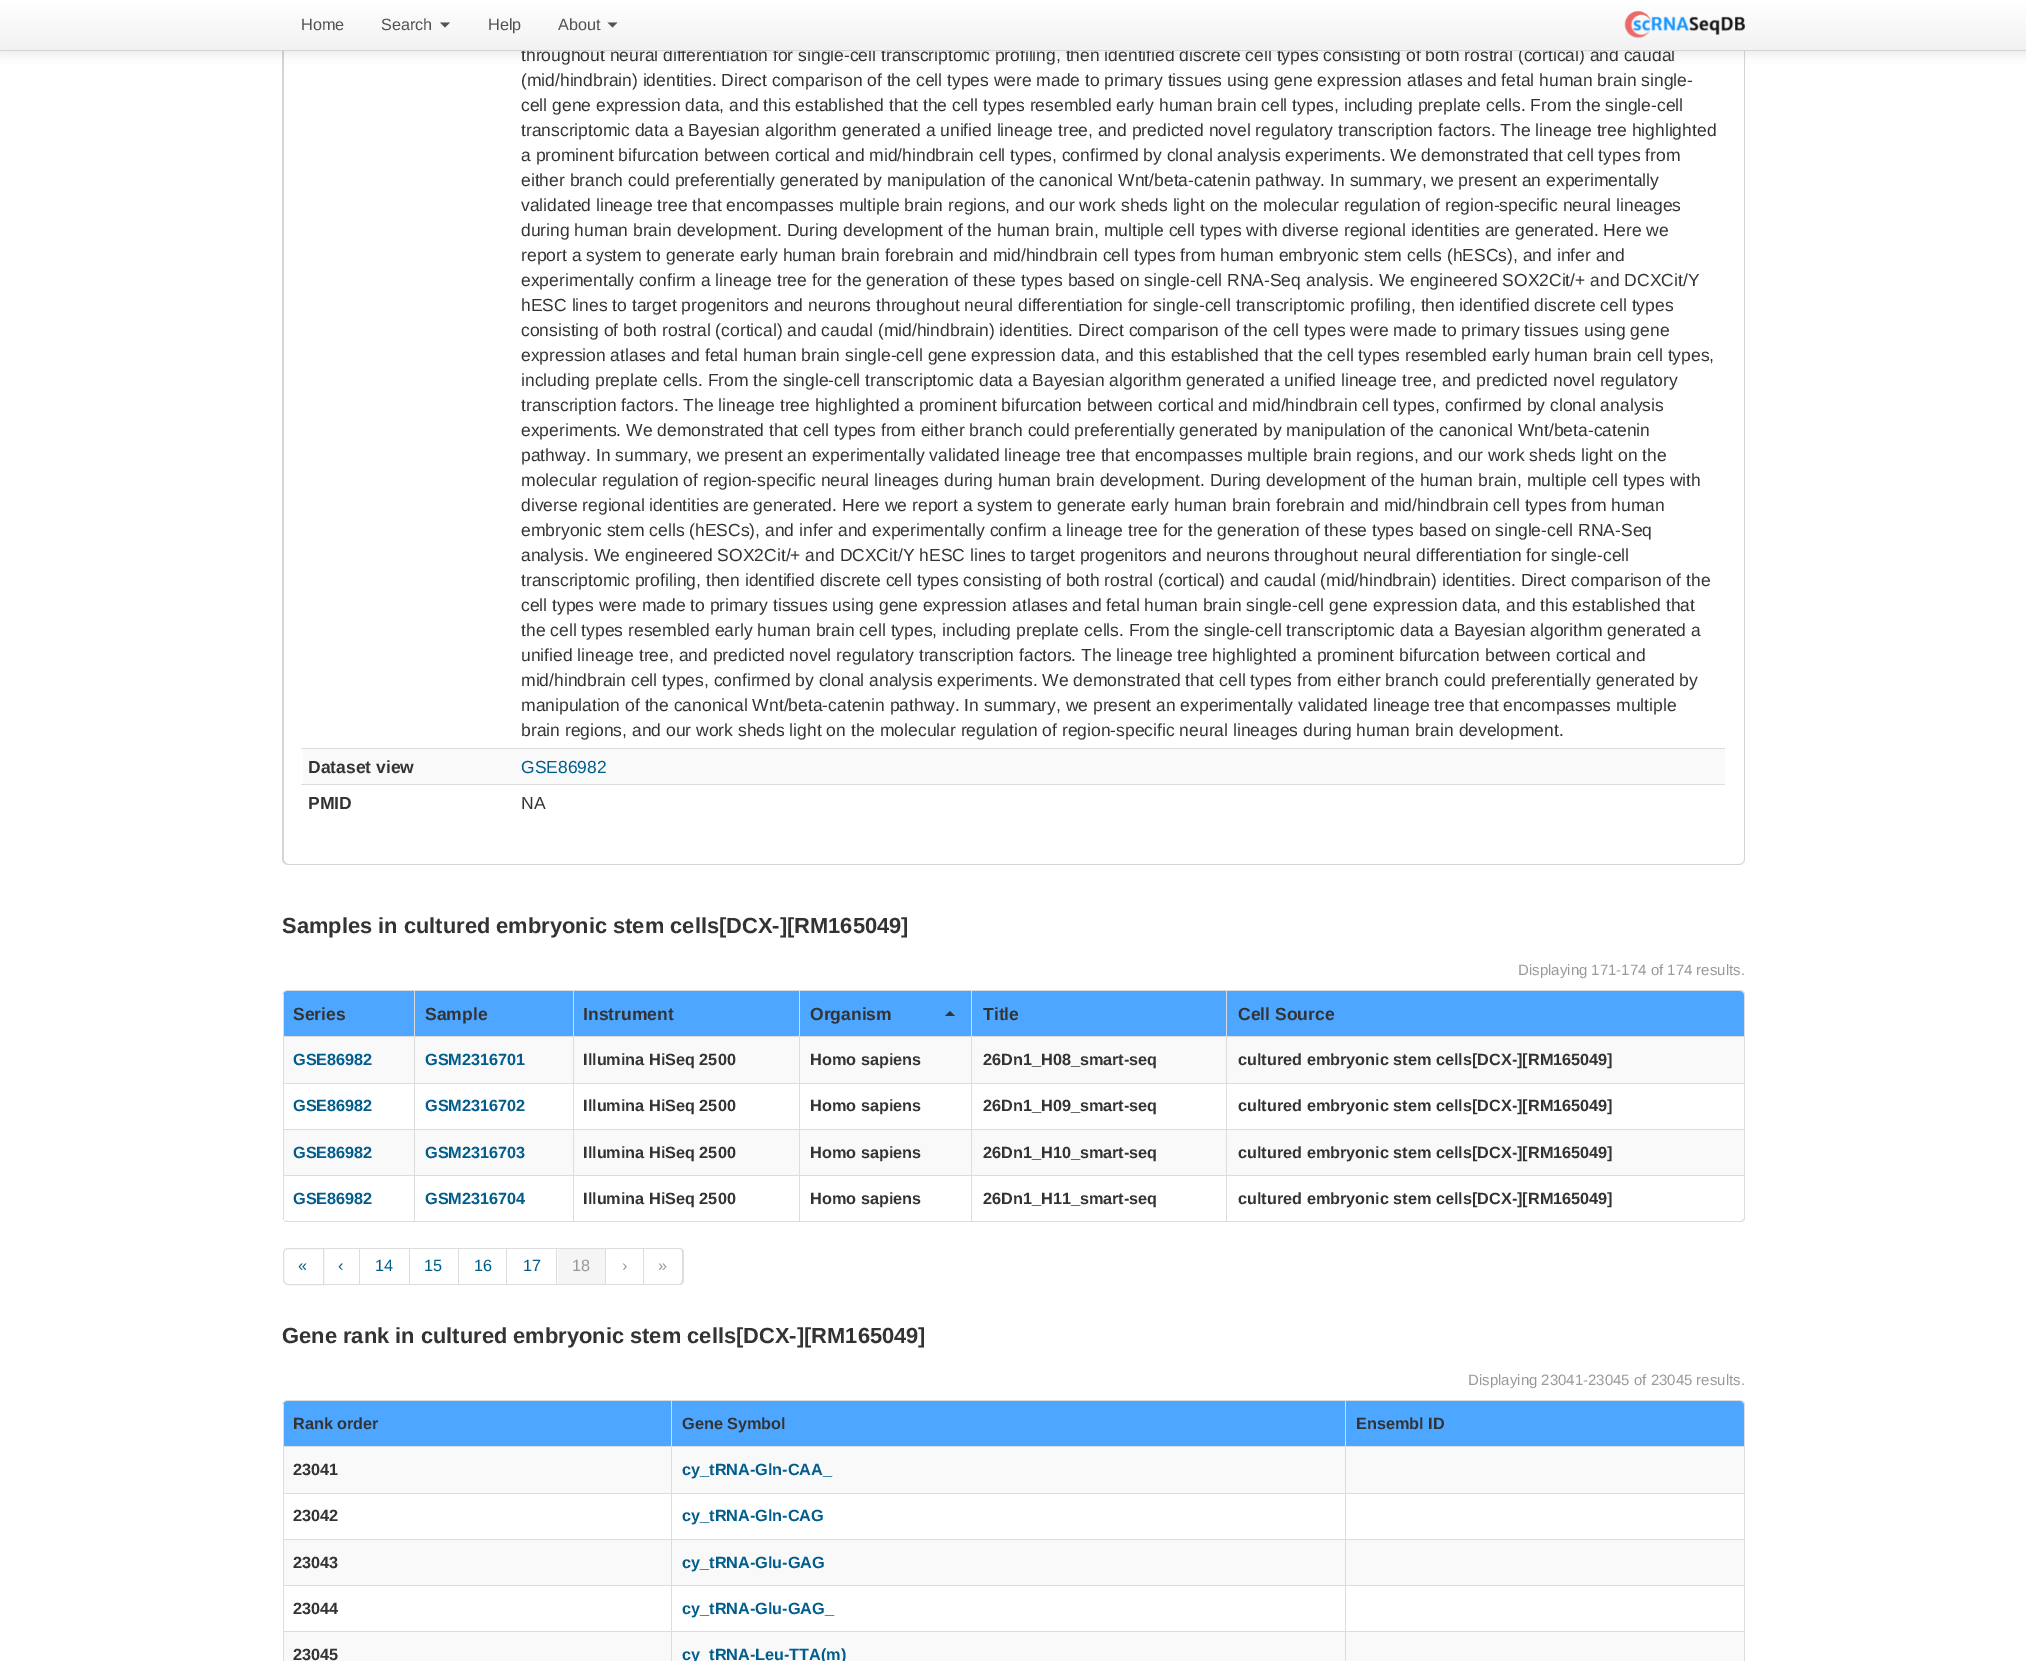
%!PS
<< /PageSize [2026 1661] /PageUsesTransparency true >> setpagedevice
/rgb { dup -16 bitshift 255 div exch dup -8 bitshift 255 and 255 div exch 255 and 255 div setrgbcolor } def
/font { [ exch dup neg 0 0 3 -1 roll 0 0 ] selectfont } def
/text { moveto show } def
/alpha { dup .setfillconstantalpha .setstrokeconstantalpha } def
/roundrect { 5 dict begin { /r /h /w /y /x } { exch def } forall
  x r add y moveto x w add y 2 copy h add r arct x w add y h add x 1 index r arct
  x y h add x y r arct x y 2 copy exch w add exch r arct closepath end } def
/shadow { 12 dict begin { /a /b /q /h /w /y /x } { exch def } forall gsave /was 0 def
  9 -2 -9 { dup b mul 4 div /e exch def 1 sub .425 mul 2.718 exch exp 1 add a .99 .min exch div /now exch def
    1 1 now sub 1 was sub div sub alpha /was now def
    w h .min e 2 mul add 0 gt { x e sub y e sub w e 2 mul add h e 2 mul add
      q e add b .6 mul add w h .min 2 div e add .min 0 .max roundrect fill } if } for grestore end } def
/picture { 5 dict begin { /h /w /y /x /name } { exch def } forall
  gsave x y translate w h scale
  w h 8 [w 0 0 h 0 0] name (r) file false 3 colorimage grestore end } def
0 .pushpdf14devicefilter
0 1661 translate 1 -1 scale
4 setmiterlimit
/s1 { /LiberationSans-Regular 17.5 font 16#333333 rgb } def
/s2 { /LiberationSans-Regular 16.25 font 16#535151 rgb } def
/s3 { /LiberationSans-Bold 17.5 font 16#333333 rgb } def
/s4 { /LiberationSans-Regular 17.5 font 16#015D8B rgb } def
/s5 { /LiberationSans-Bold 21.9 font 16#333333 rgb } def
/s6 { /LiberationSans-Regular 15 font 16#999999 rgb } def
/s7 { /LiberationSans-Bold 16.25 font 16#015D8B rgb } def
/s8 { /LiberationSans-Bold 16.25 font 16#333333 rgb } def
/s9 { /LiberationSans-Regular 16.25 font 16#015D8B rgb } def
/s10 { /LiberationSans-Regular 16.25 font 16#999999 rgb } def
16#FFFFFF rgb
0 0 2026 1661 rectfill
16#D5D5D5 rgb
282 -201 moveto 1745 -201 lineto 1745 859 lineto 1745 862 1742 865 1739 865 curveto 289 865 lineto 285 865 282 862 282 859 curveto closepath 284 -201 moveto 1744 -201 lineto 1744 859 lineto 1744 862 1742 864 1739 864 curveto 289 864 lineto 286 864 284 862 284 859 curveto closepath eofill
16#000000 rgb
0 1 2026 52 0 6 0.1 shadow
s1
(throughout neural differentiation for single-cell transcriptomic profiling, then identified discrete cell types consisting of both rostral \(cortical\) and caudal) 521 61 text
gsave 0 0 moveto 2026 0 lineto 2026 50 lineto 0 50 lineto closepath clip newpath
<< /ShadingType 2 /ColorSpace /DeviceRGB /Coords [1013 0 1013 50] /Extend [true true] /Function << /FunctionType 2 /Domain [0 1] /C0 [1 1 1] /C1 [0.949 0.949 0.949] /N 1 >> >> shfill grestore
16#D4D4D4 rgb
0 50 2026 1 rectfill
s2
(Home) 301 30 text
(Search) 381 30 text
440 22.5 moveto 450 22.5 lineto 445 27.5 lineto closepath fill
(Help) 488 30 text
(About) 558 30 text
607.5 22.5 moveto 617.5 22.5 lineto 612.5 27.5 lineto closepath fill
(pic1.raw) 1624 11 121 27 picture
s1
(\(mid/hindbrain\) identities. Direct comparison of the cell types were made to primary tissues using gene expression atlases and fetal human brain single-) 521 86 text
(cell gene expression data, and this established that the cell types resembled early human brain cell types, including preplate cells. From the single-cell) 521 111 text
(transcriptomic data a Bayesian algorithm generated a unified lineage tree, and predicted novel regulatory transcription factors. The lineage tree highlighted) 521 136 text
(a prominent bifurcation between cortical and mid/hindbrain cell types, confirmed by clonal analysis experiments. We demonstrated that cell types from) 521 161 text
(either branch could preferentially generated by manipulation of the canonical Wnt/beta-catenin pathway. In summary, we present an experimentally) 521 186 text
(validated lineage tree that encompasses multiple brain regions, and our work sheds light on the molecular regulation of region-specific neural lineages) 521 211 text
(during human brain development. During development of the human brain, multiple cell types with diverse regional identities are generated. Here we) 521 236 text
(report a system to generate early human brain forebrain and mid/hindbrain cell types from human embryonic stem cells \(hESCs\), and infer and) 521 261 text
(experimentally confirm a lineage tree for the generation of these types based on single-cell RNA-Seq analysis. We engineered SOX2Cit/+ and DCXCit/Y) 521 286 text
(hESC lines to target progenitors and neurons throughout neural differentiation for single-cell transcriptomic profiling, then identified discrete cell types) 521 311 text
(consisting of both rostral \(cortical\) and caudal \(mid/hindbrain\) identities. Direct comparison of the cell types were made to primary tissues using gene) 521 336 text
(expression atlases and fetal human brain single-cell gene expression data, and this established that the cell types resembled early human brain cell types,) 521 361 text
(including preplate cells. From the single-cell transcriptomic data a Bayesian algorithm generated a unified lineage tree, and predicted novel regulatory) 521 386 text
(transcription factors. The lineage tree highlighted a prominent bifurcation between cortical and mid/hindbrain cell types, confirmed by clonal analysis) 521 411 text
(experiments. We demonstrated that cell types from either branch could preferentially generated by manipulation of the canonical Wnt/beta-catenin) 521 436 text
(pathway. In summary, we present an experimentally validated lineage tree that encompasses multiple brain regions, and our work sheds light on the) 521 461 text
(molecular regulation of region-specific neural lineages during human brain development. During development of the human brain, multiple cell types with) 521 486 text
(diverse regional identities are generated. Here we report a system to generate early human brain forebrain and mid/hindbrain cell types from human) 521 511 text
(embryonic stem cells \(hESCs\), and infer and experimentally confirm a lineage tree for the generation of these types based on single-cell RNA-Seq) 521 536 text
(analysis. We engineered SOX2Cit/+ and DCXCit/Y hESC lines to target progenitors and neurons throughout neural differentiation for single-cell) 521 561 text
(transcriptomic profiling, then identified discrete cell types consisting of both rostral \(cortical\) and caudal \(mid/hindbrain\) identities. Direct comparison of the) 521 586 text
(cell types were made to primary tissues using gene expression atlases and fetal human brain single-cell gene expression data, and this established that) 521 611 text
(the cell types resembled early human brain cell types, including preplate cells. From the single-cell transcriptomic data a Bayesian algorithm generated a) 521 636 text
(unified lineage tree, and predicted novel regulatory transcription factors. The lineage tree highlighted a prominent bifurcation between cortical and) 521 661 text
(mid/hindbrain cell types, confirmed by clonal analysis experiments. We demonstrated that cell types from either branch could preferentially generated by) 521 686 text
(manipulation of the canonical Wnt/beta-catenin pathway. In summary, we present an experimentally validated lineage tree that encompasses multiple) 521 711 text
(brain regions, and our work sheds light on the molecular regulation of region-specific neural lineages during human brain development.) 521 736 text
16#F9F9F9 rgb
303 749 1422 35 rectfill
s3
(Dataset view) 308 773 text
16#DDDDDD rgb
301 748 1424 1 rectfill
s4
(GSE86982) 521 773 text
s3
(PMID) 308 809 text
16#DDDDDD rgb
301 784 1424 1 rectfill
s1
(NA) 521 809 text
s5
(Samples in cultured embryonic stem cells[DCX-][RM165049]) 282 933 text
s6
(Displaying 171-174 of 174 results.) 1518 975 text
16#DDDDDD rgb
288 990 moveto 1740 990 lineto 1743 990 1745 992 1745 995 curveto 1745 1218 lineto 1745 1220 1743 1222 1740 1222 curveto 288 1222 lineto 285 1222 282 1220 282 1218 curveto 282 995 lineto 282 992 285 990 288 990 curveto closepath 288 991 moveto 1740 991 lineto 1742 991 1744 993 1744 995 curveto 1744 1218 lineto 1744 1220 1742 1221 1740 1221 curveto 288 1221 lineto 285 1221 282 1220 282 1218 curveto 282 995 lineto 282 993 285 991 288 991 curveto closepath eofill
16#4DA6FF rgb
288 991 moveto 414 991 lineto 414 1036 lineto 283 1036 lineto 283 996 lineto 283 993 285 991 288 991 curveto closepath fill
16#DDDDDD rgb
283 994 1 42 rectfill
s3
(Series) 293 1020 text
16#4DA6FF rgb
415 991 158 45 rectfill
16#DDDDDD rgb
414 991 1 45 rectfill
s3
(Sample) 425 1020 text
16#4DA6FF rgb
574 991 225 45 rectfill
16#DDDDDD rgb
573 991 1 45 rectfill
s3
(Instrument) 583 1020 text
16#4DA6FF rgb
800 991 171 45 rectfill
16#DDDDDD rgb
799 991 1 45 rectfill
s3
(Organism) 810 1020 text
955 1016 moveto 945 1016 lineto 950 1011 lineto closepath fill
16#4DA6FF rgb
972 991 254 45 rectfill
16#DDDDDD rgb
971 991 1 45 rectfill
s3
(Title) 983 1020 text
16#4DA6FF rgb
1226 991 moveto 1739 991 lineto 1742 991 1744 993 1744 996 curveto 1744 1036 lineto 1226 1036 lineto closepath fill
16#DDDDDD rgb
1226 991 1 45 rectfill
s3
(Cell Source) 1238 1020 text
16#F9F9F9 rgb
284 1037 130 46 rectfill
16#DDDDDD rgb
283 1036 1461 1 rectfill
283 1036 1 47 rectfill
s7
(GSE86982) 293 1065 text
16#F9F9F9 rgb
415 1037 158 46 rectfill
16#DDDDDD rgb
414 1036 1 47 rectfill
s7
(GSM2316701) 425 1065 text
16#F9F9F9 rgb
574 1037 225 46 rectfill
16#DDDDDD rgb
573 1036 1 47 rectfill
s8
(Illumina HiSeq 2500) 583 1065 text
16#F9F9F9 rgb
800 1037 171 46 rectfill
16#DDDDDD rgb
799 1036 1 47 rectfill
s8
(Homo sapiens) 810 1065 text
16#F9F9F9 rgb
972 1037 254 46 rectfill
16#DDDDDD rgb
971 1036 1 47 rectfill
s8
(26Dn1_H08_smart-seq) 983 1065 text
16#F9F9F9 rgb
1227 1037 517 46 rectfill
16#DDDDDD rgb
1226 1036 1 47 rectfill
s8
(cultured embryonic stem cells[DCX-][RM165049]) 1238 1065 text
16#DDDDDD rgb
283 1083 1461 1 rectfill
283 1083 1 46 rectfill
s7
(GSE86982) 293 1111 text
16#DDDDDD rgb
414 1083 1 46 rectfill
s7
(GSM2316702) 425 1111 text
16#DDDDDD rgb
573 1083 1 46 rectfill
s8
(Illumina HiSeq 2500) 583 1111 text
16#DDDDDD rgb
799 1083 1 46 rectfill
s8
(Homo sapiens) 810 1111 text
16#DDDDDD rgb
971 1083 1 46 rectfill
s8
(26Dn1_H09_smart-seq) 983 1111 text
16#DDDDDD rgb
1226 1083 1 46 rectfill
s8
(cultured embryonic stem cells[DCX-][RM165049]) 1238 1111 text
16#F9F9F9 rgb
284 1130 130 45 rectfill
16#DDDDDD rgb
283 1129 1461 1 rectfill
283 1129 1 46 rectfill
s7
(GSE86982) 293 1158 text
16#F9F9F9 rgb
415 1130 158 45 rectfill
16#DDDDDD rgb
414 1129 1 46 rectfill
s7
(GSM2316703) 425 1158 text
16#F9F9F9 rgb
574 1130 225 45 rectfill
16#DDDDDD rgb
573 1129 1 46 rectfill
s8
(Illumina HiSeq 2500) 583 1158 text
16#F9F9F9 rgb
800 1130 171 45 rectfill
16#DDDDDD rgb
799 1129 1 46 rectfill
s8
(Homo sapiens) 810 1158 text
16#F9F9F9 rgb
972 1130 254 45 rectfill
16#DDDDDD rgb
971 1129 1 46 rectfill
s8
(26Dn1_H10_smart-seq) 983 1158 text
16#F9F9F9 rgb
1227 1130 517 45 rectfill
16#DDDDDD rgb
1226 1129 1 46 rectfill
s8
(cultured embryonic stem cells[DCX-][RM165049]) 1238 1158 text
16#DDDDDD rgb
283 1175 1461 1 rectfill
283 1175 1 44 rectfill
s7
(GSE86982) 293 1204 text
16#DDDDDD rgb
414 1175 1 46 rectfill
s7
(GSM2316704) 425 1204 text
16#DDDDDD rgb
573 1175 1 46 rectfill
s8
(Illumina HiSeq 2500) 583 1204 text
16#DDDDDD rgb
799 1175 1 46 rectfill
s8
(Homo sapiens) 810 1204 text
16#DDDDDD rgb
971 1175 1 46 rectfill
s8
(26Dn1_H11_smart-seq) 983 1204 text
16#DDDDDD rgb
1226 1175 1 46 rectfill
s8
(cultured embryonic stem cells[DCX-][RM165049]) 1238 1204 text
16#DDDDDD rgb
288 1248.5 moveto 323.5 1248.5 lineto 323.5 1284.5 lineto 288 1284.5 lineto 285.5 1284.5 283.5 1282.5 283.5 1280 curveto 283.5 1253 lineto 283.5 1250.5 285.5 1248.5 288 1248.5 curveto closepath stroke
s9
(«) 298 1271 text
16#DDDDDD rgb
324 1248 320 1 rectfill
359 1248 1 37 rectfill
324 1284 36 1 rectfill
s9
(‹) 338 1271 text
16#DDDDDD rgb
409 1248 1 37 rectfill
360 1284 50 1 rectfill
s9
(14) 375 1271 text
16#DDDDDD rgb
458 1248 1 37 rectfill
410 1284 49 1 rectfill
s9
(15) 424 1271 text
16#DDDDDD rgb
506 1248 1 37 rectfill
459 1284 49 1 rectfill
s9
(16) 474 1271 text
16#DDDDDD rgb
556 1248 1 37 rectfill
508 1284 50 1 rectfill
s9
(17) 523 1271 text
16#F5F5F5 rgb
558 1249 47 35 rectfill
16#DDDDDD rgb
605 1248 1 37 rectfill
558 1284 48 1 rectfill
s10
(18) 572 1271 text
16#DDDDDD rgb
643 1248 1 37 rectfill
606 1284 38 1 rectfill
s10
(›) 622 1271 text
16#DDDDDD rgb
644 1248 moveto 679 1248 lineto 682 1248 684 1250 684 1252 curveto 684 1280 lineto 684 1283 682 1285 679 1285 curveto 644 1285 lineto closepath 644 1249 moveto 679 1249 lineto 681 1249 682 1250 682 1252 curveto 682 1280 lineto 682 1282 681 1284 679 1284 curveto 644 1284 lineto closepath eofill
s10
(») 658 1271 text
s5
(Gene rank in cultured embryonic stem cells[DCX-][RM165049]) 282 1343 text
s6
(Displaying 23041-23045 of 23045 results.) 1468 1385 text
16#DDDDDD rgb
288 1400 moveto 1740 1400 lineto 1743 1400 1745 1402 1745 1405 curveto 1745 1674 lineto 1745 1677 1743 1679 1740 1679 curveto 288 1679 lineto 285 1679 282 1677 282 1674 curveto 282 1405 lineto 282 1402 285 1400 288 1400 curveto closepath 288 1401 moveto 1740 1401 lineto 1742 1401 1744 1403 1744 1405 curveto 1744 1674 lineto 1744 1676 1742 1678 1740 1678 curveto 288 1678 lineto 285 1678 282 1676 282 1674 curveto 282 1405 lineto 282 1403 285 1401 288 1401 curveto closepath eofill
16#4DA6FF rgb
288 1401 moveto 671 1401 lineto 671 1446 lineto 283 1446 lineto 283 1406 lineto 283 1403 285 1401 288 1401 curveto closepath fill
16#DDDDDD rgb
283 1404 1 42 rectfill
s8
(Rank order) 293 1429 text
16#4DA6FF rgb
672 1401 673 45 rectfill
16#DDDDDD rgb
671 1401 1 45 rectfill
s8
(Gene Symbol) 682 1429 text
16#4DA6FF rgb
1345 1401 moveto 1739 1401 lineto 1742 1401 1744 1403 1744 1406 curveto 1744 1446 lineto 1345 1446 lineto closepath fill
16#DDDDDD rgb
1345 1401 1 45 rectfill
s8
(Ensembl ID) 1356 1429 text
16#F9F9F9 rgb
284 1447 387 46 rectfill
16#DDDDDD rgb
283 1446 1461 1 rectfill
283 1446 1 47 rectfill
s8
(23041) 293 1475 text
16#F9F9F9 rgb
672 1447 673 46 rectfill
16#DDDDDD rgb
671 1446 1 47 rectfill
s7
(cy_tRNA-Gln-CAA_) 682 1475 text
16#F9F9F9 rgb
1346 1447 398 46 rectfill
16#DDDDDD rgb
1345 1446 1 47 rectfill
283 1493 1461 1 rectfill
283 1493 1 46 rectfill
s8
(23042) 293 1521 text
16#DDDDDD rgb
671 1493 1 46 rectfill
s7
(cy_tRNA-Gln-CAG) 682 1521 text
16#DDDDDD rgb
1345 1493 1 46 rectfill
16#F9F9F9 rgb
284 1540 387 45 rectfill
16#DDDDDD rgb
283 1539 1461 1 rectfill
283 1539 1 46 rectfill
s8
(23043) 293 1568 text
16#F9F9F9 rgb
672 1540 673 45 rectfill
16#DDDDDD rgb
671 1539 1 46 rectfill
s7
(cy_tRNA-Glu-GAG) 682 1568 text
16#F9F9F9 rgb
1346 1540 398 45 rectfill
16#DDDDDD rgb
1345 1539 1 46 rectfill
283 1585 1461 1 rectfill
283 1585 1 46 rectfill
s8
(23044) 293 1614 text
16#DDDDDD rgb
671 1585 1 46 rectfill
s7
(cy_tRNA-Glu-GAG_) 682 1614 text
16#DDDDDD rgb
1345 1585 1 46 rectfill
16#F9F9F9 rgb
284 1632 387 29 rectfill
16#DDDDDD rgb
283 1631 1461 1 rectfill
283 1631 1 30 rectfill
s8
(23045) 293 1660 text
16#F9F9F9 rgb
672 1632 673 29 rectfill
16#DDDDDD rgb
671 1631 1 30 rectfill
s7
(cy_tRNA-Leu-TTA\(m\)) 682 1660 text
16#F9F9F9 rgb
1346 1632 398 29 rectfill
16#DDDDDD rgb
1345 1631 1 30 rectfill
.poppdf14devicefilter showpage
